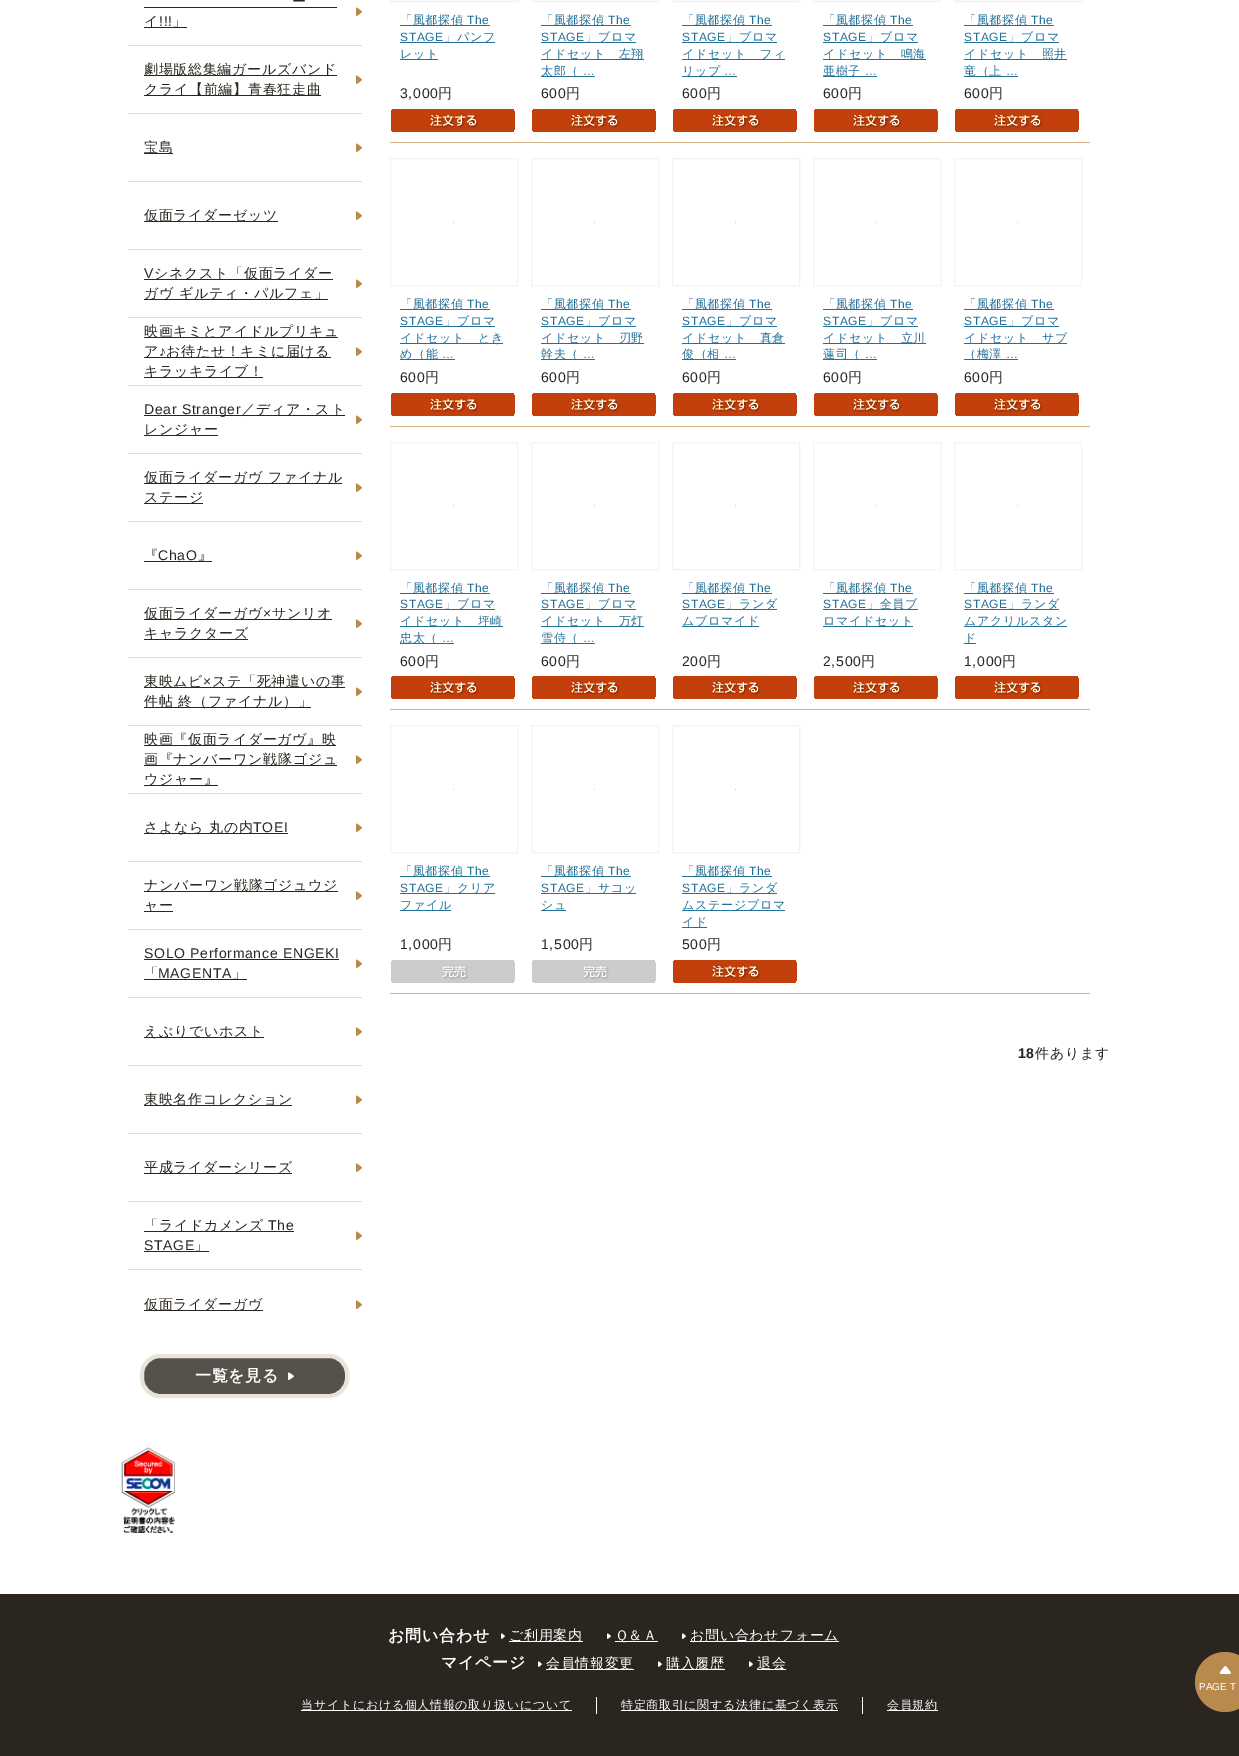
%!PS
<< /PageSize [1239 1756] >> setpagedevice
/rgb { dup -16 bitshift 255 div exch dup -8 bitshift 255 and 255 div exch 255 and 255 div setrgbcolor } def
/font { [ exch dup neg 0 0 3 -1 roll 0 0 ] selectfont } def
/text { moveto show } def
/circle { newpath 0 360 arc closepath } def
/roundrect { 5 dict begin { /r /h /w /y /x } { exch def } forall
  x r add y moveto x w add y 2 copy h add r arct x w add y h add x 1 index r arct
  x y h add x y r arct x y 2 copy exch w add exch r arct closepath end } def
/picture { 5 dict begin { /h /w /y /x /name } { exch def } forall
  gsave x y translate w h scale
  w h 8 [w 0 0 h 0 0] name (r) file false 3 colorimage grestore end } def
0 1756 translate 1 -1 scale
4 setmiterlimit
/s1 { /LiberationSans-Regular 10 font 16#FFFFFF rgb } def
16#FFFFFF rgb
0 0 1239 1756 rectfill
16#EED9BE rgb
128 45 234 1 rectfill
/WenQuanYiZenHei-Medium 14 font
16#2A251E rgb
292 6 moveto 0.7 0 (ー) ashow
144 7 193 1 rectfill
(pic1.raw) 356 7 6 9 picture
144 27 43 1 rectfill
144 26 moveto 0.7 0 (イ) ashow
/LiberationSans-Regular 14 font
159 26 moveto 0.7 0 (!!!) ashow
/WenQuanYiZenHei-Medium 14 font
172 26 moveto 0.7 0 (」) ashow
16#EED9BE rgb
128 113 234 1 rectfill
16#2A251E rgb
144 75 193 1 rectfill
144 74 moveto 0.7 0 (劇場版総集編ガールズバンド) ashow
(pic1.raw) 356 75 6 9 picture
144 95 177 1 rectfill
144 94 moveto 0.7 0 (クライ【前編】青春狂走曲) ashow
16#EED9BE rgb
128 181 234 1 rectfill
16#2A251E rgb
144 153 29 1 rectfill
144 152 moveto 0.7 0 (宝島) ashow
(pic1.raw) 356 143 6 9 picture
16#EED9BE rgb
128 249 234 1 rectfill
16#2A251E rgb
144 221 134 1 rectfill
144 220 moveto 0.7 0 (仮面ライダーゼッツ) ashow
(pic1.raw) 356 211 6 9 picture
16#EED9BE rgb
128 317 234 1 rectfill
/LiberationSans-Regular 14 font
16#2A251E rgb
144 278 moveto 0.7 0 (V) ashow
144 279 189 1 rectfill
/WenQuanYiZenHei-Medium 14 font
154 278 moveto 0.7 0 (シネクスト「仮面ライダー) ashow
(pic1.raw) 356 279 6 9 picture
144 299 184 1 rectfill
144 298 moveto 0.7 0 (ガヴ ギルティ・パルフェ」) ashow
16#EED9BE rgb
128 385 234 1 rectfill
16#2A251E rgb
144 337 194 1 rectfill
144 336 moveto 0.7 0 (映画キミとアイドルプリキュ) ashow
144 357 187 1 rectfill
144 356 moveto 0.7 0 (ア) ashow
/LiberationSans-Regular 14 font
159 356 moveto 0.7 0 (♪) ashow
/WenQuanYiZenHei-Medium 14 font
166 356 moveto 0.7 0 (お待たせ！キミに届ける) ashow
(pic1.raw) 356 347 6 9 picture
144 377 119 1 rectfill
144 376 moveto 0.7 0 (キラッキライブ！) ashow
16#EED9BE rgb
128 453 234 1 rectfill
16#2A251E rgb
144 415 201 1 rectfill
/LiberationSans-Regular 14 font
144 414 moveto 0.7 0 (Dear Stranger) ashow
/WenQuanYiZenHei-Medium 14 font
241 414 moveto 0.7 0 (／ディア・スト) ashow
(pic1.raw) 356 415 6 9 picture
144 435 74 1 rectfill
144 434 moveto 0.7 0 (レンジャー) ashow
16#EED9BE rgb
128 521 234 1 rectfill
16#2A251E rgb
144 483 198 1 rectfill
144 482 moveto 0.7 0 (仮面ライダーガヴ ファイナル) ashow
(pic1.raw) 356 483 6 9 picture
144 503 59 1 rectfill
144 502 moveto 0.7 0 (ステージ) ashow
16#EED9BE rgb
128 589 234 1 rectfill
16#2A251E rgb
144 560 moveto 0.7 0 (『) ashow
/LiberationSans-Regular 14 font
158 560 moveto 0.7 0 (ChaO) ashow
144 561 68 1 rectfill
/WenQuanYiZenHei-Medium 14 font
198 560 moveto 0.7 0 (』) ashow
(pic1.raw) 356 551 6 9 picture
16#EED9BE rgb
128 657 234 1 rectfill
16#2A251E rgb
144 619 188 1 rectfill
144 618 moveto 0.7 0 (仮面ライダーガヴ) ashow
/LiberationSans-Regular 14 font
263 618 moveto 0.7 0 (×) ashow
/WenQuanYiZenHei-Medium 14 font
272 618 moveto 0.7 0 (サンリオ) ashow
(pic1.raw) 356 619 6 9 picture
144 639 104 1 rectfill
144 638 moveto 0.7 0 (キャラクターズ) ashow
16#EED9BE rgb
128 725 234 1 rectfill
16#2A251E rgb
144 687 201 1 rectfill
144 686 moveto 0.7 0 (東映ムビ) ashow
/LiberationSans-Regular 14 font
203 686 moveto 0.7 0 (×) ashow
/WenQuanYiZenHei-Medium 14 font
212 686 moveto 0.7 0 (ステ「死神遣いの事) ashow
(pic1.raw) 356 687 6 9 picture
144 707 167 1 rectfill
144 706 moveto 0.7 0 (件帖 終（ファイナル）」) ashow
16#EED9BE rgb
128 793 234 1 rectfill
16#2A251E rgb
144 745 192 1 rectfill
144 744 moveto 0.7 0 (映画『仮面ライダーガヴ』映) ashow
144 765 193 1 rectfill
144 764 moveto 0.7 0 (画『ナンバーワン戦隊ゴジュ) ashow
(pic1.raw) 356 755 6 9 picture
144 785 74 1 rectfill
144 784 moveto 0.7 0 (ウジャー』) ashow
16#EED9BE rgb
128 861 234 1 rectfill
16#2A251E rgb
144 833 144 1 rectfill
144 832 moveto 0.7 0 (さよなら 丸の内) ashow
/LiberationSans-Regular 14 font
253 832 moveto 0.7 0 (TOEI) ashow
(pic1.raw) 356 823 6 9 picture
16#EED9BE rgb
128 929 234 1 rectfill
16#2A251E rgb
144 891 194 1 rectfill
/WenQuanYiZenHei-Medium 14 font
144 890 moveto 0.7 0 (ナンバーワン戦隊ゴジュウジ) ashow
(pic1.raw) 356 891 6 9 picture
144 911 29 1 rectfill
144 910 moveto 0.7 0 (ャー) ashow
16#EED9BE rgb
128 997 234 1 rectfill
/LiberationSans-Regular 14 font
16#2A251E rgb
144 958 moveto 0.7 0 (SOLO Performance ENGEKI) ashow
144 959 195 1 rectfill
(pic1.raw) 356 959 6 9 picture
/WenQuanYiZenHei-Medium 14 font
144 978 moveto 0.7 0 (「) ashow
/LiberationSans-Regular 14 font
158 978 moveto 0.7 0 (MAGENTA) ashow
144 979 103 1 rectfill
/WenQuanYiZenHei-Medium 14 font
232 978 moveto 0.7 0 (」) ashow
16#EED9BE rgb
128 1065 234 1 rectfill
16#2A251E rgb
144 1037 120 1 rectfill
144 1036 moveto 0.7 0 (えぶりでいホスト) ashow
(pic1.raw) 356 1027 6 9 picture
16#EED9BE rgb
128 1133 234 1 rectfill
16#2A251E rgb
144 1105 148 1 rectfill
144 1104 moveto 0.7 0 (東映名作コレクション) ashow
(pic1.raw) 356 1095 6 9 picture
16#EED9BE rgb
128 1201 234 1 rectfill
16#2A251E rgb
144 1173 148 1 rectfill
144 1172 moveto 0.7 0 (平成ライダーシリーズ) ashow
(pic1.raw) 356 1163 6 9 picture
16#EED9BE rgb
128 1269 234 1 rectfill
16#2A251E rgb
144 1231 150 1 rectfill
144 1230 moveto 0.7 0 (「ライドカメンズ) ashow
/LiberationSans-Regular 14 font
268 1230 moveto 0.7 0 (The) ashow
(pic1.raw) 356 1231 6 9 picture
144 1250 moveto 0.7 0 (STAGE) ashow
144 1251 65 1 rectfill
/WenQuanYiZenHei-Medium 14 font
194 1250 moveto 0.7 0 (」) ashow
144 1310 119 1 rectfill
144 1309 moveto 0.7 0 (仮面ライダーガヴ) ashow
(pic1.raw) 356 1300 6 9 picture
16#55514B rgb
142 1356 205 40 18 roundrect gsave fill grestore
16#E9E3D9 rgb
4 setlinewidth
stroke
/WenQuanYiZenHei-Bold 16 font
16#FFFFFF rgb
195 1381 moveto 0.7 0 (一覧を見る) ashow
(pic2.raw) 288 1372 6 8 picture
(pic3.raw) 121 1447 54 86 picture
16#D4B387 rgb
390 142 700 1 rectfill
16#F3F3F3 rgb
1 setlinewidth
390.5 -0.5 127 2 rectstroke
16#237099 rgb
400 25 90 1 rectfill
/WenQuanYiZenHei-Medium 12 font
400 24 moveto 0.7 0 (「風都探偵) ashow
/LiberationSans-Regular 12 font
467 24 moveto 0.7 0 (The) ashow
400 41 moveto 0.7 0 (STAGE) ashow
400 42 95 1 rectfill
/WenQuanYiZenHei-Medium 12 font
444 41 moveto 0.7 0 (」パンフ) ashow
400 59 38 1 rectfill
400 58 moveto 0.7 0 (レット) ashow
/LiberationSans-Regular 14 font
16#2A251E rgb
400 98 moveto 0.7 0 (3,000) ashow
/WenQuanYiZenHei-Medium 14 font
438 98 moveto 0.7 0 (円) ashow
(pic4.raw) 391 109 124 23 picture
16#F3F3F3 rgb
531.5 -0.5 127 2 rectstroke
16#237099 rgb
541 25 90 1 rectfill
/WenQuanYiZenHei-Medium 12 font
541 24 moveto 0.7 0 (「風都探偵) ashow
/LiberationSans-Regular 12 font
608 24 moveto 0.7 0 (The) ashow
541 41 moveto 0.7 0 (STAGE) ashow
541 42 95 1 rectfill
/WenQuanYiZenHei-Medium 12 font
585 41 moveto 0.7 0 (」ブロマ) ashow
541 59 103 1 rectfill
541 58 moveto 0.7 0 (イドセット　左翔) ashow
541 76 54 1 rectfill
541 75 moveto 0.7 0 (太郎（) ashow
/LiberationSans-Regular 12 font
583 75 moveto 0.7 0 (…) ashow
/LiberationSans-Regular 14 font
16#2A251E rgb
541 98 moveto 0.7 0 (600) ashow
/WenQuanYiZenHei-Medium 14 font
566 98 moveto 0.7 0 (円) ashow
(pic4.raw) 532 109 124 23 picture
16#F3F3F3 rgb
672.5 -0.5 127 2 rectstroke
16#237099 rgb
682 25 90 1 rectfill
/WenQuanYiZenHei-Medium 12 font
682 24 moveto 0.7 0 (「風都探偵) ashow
/LiberationSans-Regular 12 font
749 24 moveto 0.7 0 (The) ashow
682 41 moveto 0.7 0 (STAGE) ashow
682 42 95 1 rectfill
/WenQuanYiZenHei-Medium 12 font
726 41 moveto 0.7 0 (」ブロマ) ashow
682 59 103 1 rectfill
682 58 moveto 0.7 0 (イドセット　フィ) ashow
682 76 55 1 rectfill
682 75 moveto 0.7 0 (リップ) ashow
/LiberationSans-Regular 12 font
724 75 moveto 0.7 0 (…) ashow
/LiberationSans-Regular 14 font
16#2A251E rgb
682 98 moveto 0.7 0 (600) ashow
/WenQuanYiZenHei-Medium 14 font
707 98 moveto 0.7 0 (円) ashow
(pic4.raw) 673 109 124 23 picture
16#F3F3F3 rgb
813.5 -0.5 127 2 rectstroke
16#237099 rgb
823 25 90 1 rectfill
/WenQuanYiZenHei-Medium 12 font
823 24 moveto 0.7 0 (「風都探偵) ashow
/LiberationSans-Regular 12 font
890 24 moveto 0.7 0 (The) ashow
823 41 moveto 0.7 0 (STAGE) ashow
823 42 95 1 rectfill
/WenQuanYiZenHei-Medium 12 font
867 41 moveto 0.7 0 (」ブロマ) ashow
823 59 103 1 rectfill
823 58 moveto 0.7 0 (イドセット　鳴海) ashow
823 76 54 1 rectfill
823 75 moveto 0.7 0 (亜樹子) ashow
/LiberationSans-Regular 12 font
865 75 moveto 0.7 0 (…) ashow
/LiberationSans-Regular 14 font
16#2A251E rgb
823 98 moveto 0.7 0 (600) ashow
/WenQuanYiZenHei-Medium 14 font
848 98 moveto 0.7 0 (円) ashow
(pic4.raw) 814 109 124 23 picture
16#F3F3F3 rgb
954.5 -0.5 127 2 rectstroke
16#237099 rgb
964 25 90 1 rectfill
/WenQuanYiZenHei-Medium 12 font
964 24 moveto 0.7 0 (「風都探偵) ashow
/LiberationSans-Regular 12 font
1031 24 moveto 0.7 0 (The) ashow
964 41 moveto 0.7 0 (STAGE) ashow
964 42 95 1 rectfill
/WenQuanYiZenHei-Medium 12 font
1008 41 moveto 0.7 0 (」ブロマ) ashow
964 59 103 1 rectfill
964 58 moveto 0.7 0 (イドセット　照井) ashow
964 76 54 1 rectfill
964 75 moveto 0.7 0 (竜（上) ashow
/LiberationSans-Regular 12 font
1006 75 moveto 0.7 0 (…) ashow
/LiberationSans-Regular 14 font
16#2A251E rgb
964 98 moveto 0.7 0 (600) ashow
/WenQuanYiZenHei-Medium 14 font
989 98 moveto 0.7 0 (円) ashow
(pic4.raw) 955 109 124 23 picture
16#D4B387 rgb
390 426 700 1 rectfill
16#F3F3F3 rgb
390.5 158.5 127 127 rectstroke
16#C3C3C3 rgb
453 222 1 1 rectfill
16#237099 rgb
400 309 90 1 rectfill
/WenQuanYiZenHei-Medium 12 font
400 308 moveto 0.7 0 (「風都探偵) ashow
/LiberationSans-Regular 12 font
467 308 moveto 0.7 0 (The) ashow
400 325 moveto 0.7 0 (STAGE) ashow
400 326 95 1 rectfill
/WenQuanYiZenHei-Medium 12 font
444 325 moveto 0.7 0 (」ブロマ) ashow
400 343 103 1 rectfill
400 342 moveto 0.7 0 (イドセット　とき) ashow
400 359 55 1 rectfill
400 358 moveto 0.7 0 (め（能) ashow
/LiberationSans-Regular 12 font
442 358 moveto 0.7 0 (…) ashow
/LiberationSans-Regular 14 font
16#2A251E rgb
400 382 moveto 0.7 0 (600) ashow
/WenQuanYiZenHei-Medium 14 font
425 382 moveto 0.7 0 (円) ashow
(pic4.raw) 391 393 124 23 picture
16#F3F3F3 rgb
531.5 158.5 127 127 rectstroke
16#C3C3C3 rgb
594 222 1 1 rectfill
16#237099 rgb
541 309 90 1 rectfill
/WenQuanYiZenHei-Medium 12 font
541 308 moveto 0.7 0 (「風都探偵) ashow
/LiberationSans-Regular 12 font
608 308 moveto 0.7 0 (The) ashow
541 325 moveto 0.7 0 (STAGE) ashow
541 326 95 1 rectfill
/WenQuanYiZenHei-Medium 12 font
585 325 moveto 0.7 0 (」ブロマ) ashow
541 343 103 1 rectfill
541 342 moveto 0.7 0 (イドセット　刃野) ashow
541 359 54 1 rectfill
541 358 moveto 0.7 0 (幹夫（) ashow
/LiberationSans-Regular 12 font
583 358 moveto 0.7 0 (…) ashow
/LiberationSans-Regular 14 font
16#2A251E rgb
541 382 moveto 0.7 0 (600) ashow
/WenQuanYiZenHei-Medium 14 font
566 382 moveto 0.7 0 (円) ashow
(pic4.raw) 532 393 124 23 picture
16#F3F3F3 rgb
672.5 158.5 127 127 rectstroke
16#C3C3C3 rgb
735 222 1 1 rectfill
16#237099 rgb
682 309 90 1 rectfill
/WenQuanYiZenHei-Medium 12 font
682 308 moveto 0.7 0 (「風都探偵) ashow
/LiberationSans-Regular 12 font
749 308 moveto 0.7 0 (The) ashow
682 325 moveto 0.7 0 (STAGE) ashow
682 326 95 1 rectfill
/WenQuanYiZenHei-Medium 12 font
726 325 moveto 0.7 0 (」ブロマ) ashow
682 343 103 1 rectfill
682 342 moveto 0.7 0 (イドセット　真倉) ashow
682 359 54 1 rectfill
682 358 moveto 0.7 0 (俊（相) ashow
/LiberationSans-Regular 12 font
724 358 moveto 0.7 0 (…) ashow
/LiberationSans-Regular 14 font
16#2A251E rgb
682 382 moveto 0.7 0 (600) ashow
/WenQuanYiZenHei-Medium 14 font
707 382 moveto 0.7 0 (円) ashow
(pic4.raw) 673 393 124 23 picture
16#F3F3F3 rgb
813.5 158.5 127 127 rectstroke
16#C3C3C3 rgb
876 222 1 1 rectfill
16#237099 rgb
823 309 90 1 rectfill
/WenQuanYiZenHei-Medium 12 font
823 308 moveto 0.7 0 (「風都探偵) ashow
/LiberationSans-Regular 12 font
890 308 moveto 0.7 0 (The) ashow
823 325 moveto 0.7 0 (STAGE) ashow
823 326 95 1 rectfill
/WenQuanYiZenHei-Medium 12 font
867 325 moveto 0.7 0 (」ブロマ) ashow
823 343 103 1 rectfill
823 342 moveto 0.7 0 (イドセット　立川) ashow
823 359 54 1 rectfill
823 358 moveto 0.7 0 (蓮司（) ashow
/LiberationSans-Regular 12 font
865 358 moveto 0.7 0 (…) ashow
/LiberationSans-Regular 14 font
16#2A251E rgb
823 382 moveto 0.7 0 (600) ashow
/WenQuanYiZenHei-Medium 14 font
848 382 moveto 0.7 0 (円) ashow
(pic4.raw) 814 393 124 23 picture
16#F3F3F3 rgb
954.5 158.5 127 127 rectstroke
16#C3C3C3 rgb
1017 222 1 1 rectfill
16#237099 rgb
964 309 90 1 rectfill
/WenQuanYiZenHei-Medium 12 font
964 308 moveto 0.7 0 (「風都探偵) ashow
/LiberationSans-Regular 12 font
1031 308 moveto 0.7 0 (The) ashow
964 325 moveto 0.7 0 (STAGE) ashow
964 326 95 1 rectfill
/WenQuanYiZenHei-Medium 12 font
1008 325 moveto 0.7 0 (」ブロマ) ashow
964 343 103 1 rectfill
964 342 moveto 0.7 0 (イドセット　サブ) ashow
964 359 54 1 rectfill
964 358 moveto 0.7 0 (（梅澤) ashow
/LiberationSans-Regular 12 font
1006 358 moveto 0.7 0 (…) ashow
/LiberationSans-Regular 14 font
16#2A251E rgb
964 382 moveto 0.7 0 (600) ashow
/WenQuanYiZenHei-Medium 14 font
989 382 moveto 0.7 0 (円) ashow
(pic4.raw) 955 393 124 23 picture
16#D4B387 rgb
390 709 700 1 rectfill
16#F3F3F3 rgb
390.5 442.5 127 127 rectstroke
16#C3C3C3 rgb
453 505 1 1 rectfill
16#237099 rgb
400 593 90 1 rectfill
/WenQuanYiZenHei-Medium 12 font
400 592 moveto 0.7 0 (「風都探偵) ashow
/LiberationSans-Regular 12 font
467 592 moveto 0.7 0 (The) ashow
400 608 moveto 0.7 0 (STAGE) ashow
400 609 95 1 rectfill
/WenQuanYiZenHei-Medium 12 font
444 608 moveto 0.7 0 (」ブロマ) ashow
400 626 103 1 rectfill
400 625 moveto 0.7 0 (イドセット　坪崎) ashow
400 643 54 1 rectfill
400 642 moveto 0.7 0 (忠太（) ashow
/LiberationSans-Regular 12 font
442 642 moveto 0.7 0 (…) ashow
/LiberationSans-Regular 14 font
16#2A251E rgb
400 666 moveto 0.7 0 (600) ashow
/WenQuanYiZenHei-Medium 14 font
425 666 moveto 0.7 0 (円) ashow
(pic4.raw) 391 676 124 23 picture
16#F3F3F3 rgb
531.5 442.5 127 127 rectstroke
16#C3C3C3 rgb
594 505 1 1 rectfill
16#237099 rgb
541 593 90 1 rectfill
/WenQuanYiZenHei-Medium 12 font
541 592 moveto 0.7 0 (「風都探偵) ashow
/LiberationSans-Regular 12 font
608 592 moveto 0.7 0 (The) ashow
541 608 moveto 0.7 0 (STAGE) ashow
541 609 95 1 rectfill
/WenQuanYiZenHei-Medium 12 font
585 608 moveto 0.7 0 (」ブロマ) ashow
541 626 103 1 rectfill
541 625 moveto 0.7 0 (イドセット　万灯) ashow
541 643 54 1 rectfill
541 642 moveto 0.7 0 (雪侍（) ashow
/LiberationSans-Regular 12 font
583 642 moveto 0.7 0 (…) ashow
/LiberationSans-Regular 14 font
16#2A251E rgb
541 666 moveto 0.7 0 (600) ashow
/WenQuanYiZenHei-Medium 14 font
566 666 moveto 0.7 0 (円) ashow
(pic4.raw) 532 676 124 23 picture
16#F3F3F3 rgb
672.5 442.5 127 127 rectstroke
16#C3C3C3 rgb
735 505 1 1 rectfill
16#237099 rgb
682 593 90 1 rectfill
/WenQuanYiZenHei-Medium 12 font
682 592 moveto 0.7 0 (「風都探偵) ashow
/LiberationSans-Regular 12 font
749 592 moveto 0.7 0 (The) ashow
682 608 moveto 0.7 0 (STAGE) ashow
682 609 95 1 rectfill
/WenQuanYiZenHei-Medium 12 font
726 608 moveto 0.7 0 (」ランダ) ashow
682 626 77 1 rectfill
682 625 moveto 0.7 0 (ムブロマイド) ashow
/LiberationSans-Regular 14 font
16#2A251E rgb
682 666 moveto 0.7 0 (200) ashow
/WenQuanYiZenHei-Medium 14 font
707 666 moveto 0.7 0 (円) ashow
(pic4.raw) 673 676 124 23 picture
16#F3F3F3 rgb
813.5 442.5 127 127 rectstroke
16#C3C3C3 rgb
876 505 1 1 rectfill
16#237099 rgb
823 593 90 1 rectfill
/WenQuanYiZenHei-Medium 12 font
823 592 moveto 0.7 0 (「風都探偵) ashow
/LiberationSans-Regular 12 font
890 592 moveto 0.7 0 (The) ashow
823 608 moveto 0.7 0 (STAGE) ashow
823 609 95 1 rectfill
/WenQuanYiZenHei-Medium 12 font
867 608 moveto 0.7 0 (」全員ブ) ashow
823 626 90 1 rectfill
823 625 moveto 0.7 0 (ロマイドセット) ashow
/LiberationSans-Regular 14 font
16#2A251E rgb
823 666 moveto 0.7 0 (2,500) ashow
/WenQuanYiZenHei-Medium 14 font
861 666 moveto 0.7 0 (円) ashow
(pic4.raw) 814 676 124 23 picture
16#F3F3F3 rgb
954.5 442.5 127 127 rectstroke
16#C3C3C3 rgb
1017 505 1 1 rectfill
16#237099 rgb
964 593 90 1 rectfill
/WenQuanYiZenHei-Medium 12 font
964 592 moveto 0.7 0 (「風都探偵) ashow
/LiberationSans-Regular 12 font
1031 592 moveto 0.7 0 (The) ashow
964 608 moveto 0.7 0 (STAGE) ashow
964 609 95 1 rectfill
/WenQuanYiZenHei-Medium 12 font
1008 608 moveto 0.7 0 (」ランダ) ashow
964 626 103 1 rectfill
964 625 moveto 0.7 0 (ムアクリルスタン) ashow
964 643 12 1 rectfill
964 642 moveto 0.7 0 (ド) ashow
/LiberationSans-Regular 14 font
16#2A251E rgb
964 666 moveto 0.7 0 (1,000) ashow
/WenQuanYiZenHei-Medium 14 font
1002 666 moveto 0.7 0 (円) ashow
(pic4.raw) 955 676 124 23 picture
16#D4B387 rgb
390 993 700 1 rectfill
16#F3F3F3 rgb
390.5 725.5 127 127 rectstroke
16#C3C3C3 rgb
453 789 1 1 rectfill
16#237099 rgb
400 876 90 1 rectfill
/WenQuanYiZenHei-Medium 12 font
400 875 moveto 0.7 0 (「風都探偵) ashow
/LiberationSans-Regular 12 font
467 875 moveto 0.7 0 (The) ashow
400 892 moveto 0.7 0 (STAGE) ashow
400 893 95 1 rectfill
/WenQuanYiZenHei-Medium 12 font
444 892 moveto 0.7 0 (」クリア) ashow
400 910 51 1 rectfill
400 909 moveto 0.7 0 (ファイル) ashow
/LiberationSans-Regular 14 font
16#2A251E rgb
400 949 moveto 0.7 0 (1,000) ashow
/WenQuanYiZenHei-Medium 14 font
438 949 moveto 0.7 0 (円) ashow
(pic5.raw) 391 960 124 23 picture
16#F3F3F3 rgb
531.5 725.5 127 127 rectstroke
16#C3C3C3 rgb
594 789 1 1 rectfill
16#237099 rgb
541 876 90 1 rectfill
/WenQuanYiZenHei-Medium 12 font
541 875 moveto 0.7 0 (「風都探偵) ashow
/LiberationSans-Regular 12 font
608 875 moveto 0.7 0 (The) ashow
541 892 moveto 0.7 0 (STAGE) ashow
541 893 95 1 rectfill
/WenQuanYiZenHei-Medium 12 font
585 892 moveto 0.7 0 (」サコッ) ashow
541 910 25 1 rectfill
541 909 moveto 0.7 0 (シュ) ashow
/LiberationSans-Regular 14 font
16#2A251E rgb
541 949 moveto 0.7 0 (1,500) ashow
/WenQuanYiZenHei-Medium 14 font
579 949 moveto 0.7 0 (円) ashow
(pic5.raw) 532 960 124 23 picture
16#F3F3F3 rgb
672.5 725.5 127 127 rectstroke
16#C3C3C3 rgb
735 789 1 1 rectfill
16#237099 rgb
682 876 90 1 rectfill
/WenQuanYiZenHei-Medium 12 font
682 875 moveto 0.7 0 (「風都探偵) ashow
/LiberationSans-Regular 12 font
749 875 moveto 0.7 0 (The) ashow
682 892 moveto 0.7 0 (STAGE) ashow
682 893 95 1 rectfill
/WenQuanYiZenHei-Medium 12 font
726 892 moveto 0.7 0 (」ランダ) ashow
682 910 103 1 rectfill
682 909 moveto 0.7 0 (ムステージブロマ) ashow
682 927 25 1 rectfill
682 926 moveto 0.7 0 (イド) ashow
/LiberationSans-Regular 14 font
16#2A251E rgb
682 949 moveto 0.7 0 (500) ashow
/WenQuanYiZenHei-Medium 14 font
707 949 moveto 0.7 0 (円) ashow
(pic4.raw) 673 960 124 23 picture
/LiberationSans-Bold 14 font
1018 1058 moveto 0.7 0 (18) ashow
/WenQuanYiZenHei-Medium 14 font
1035 1058 moveto 0.7 0 (件あります) ashow
0 1594 1239 162 rectfill
/WenQuanYiZenHei-Bold 16 font
16#FFFFFF rgb
388 1641 moveto 0.7 0 (お問い合わせ) ashow
(pic6.raw) 501 1633 4 6 picture
509 1641 74 1 rectfill
/WenQuanYiZenHei-Medium 14 font
509 1640 moveto 0.7 0 (ご利用案内) ashow
(pic6.raw) 607 1633 4 6 picture
615 1641 43 1 rectfill
615 1640 moveto 0.7 0 (Ｑ＆Ａ) ashow
(pic6.raw) 682 1633 4 6 picture
690 1641 149 1 rectfill
690 1640 moveto 0.7 0 (お問い合わせフォーム) ashow
/WenQuanYiZenHei-Bold 16 font
441 1668 moveto 0.7 0 (マイページ) ashow
(pic6.raw) 538 1661 4 6 picture
546 1669 88 1 rectfill
/WenQuanYiZenHei-Medium 14 font
546 1668 moveto 0.7 0 (会員情報変更) ashow
(pic6.raw) 658 1661 4 6 picture
666 1669 59 1 rectfill
666 1668 moveto 0.7 0 (購入履歴) ashow
(pic6.raw) 749 1661 4 6 picture
757 1669 29 1 rectfill
757 1668 moveto 0.7 0 (退会) ashow
16#B98A4D rgb
1225 1682 30 circle fill
(pic7.raw) 1219 1666 12 8 picture
s1
(PAGE T) 1199 1690 text
301 1710 271 1 rectfill
/WenQuanYiZenHei-Medium 12 font
301 1709 moveto 0.7 0 (当サイトにおける個人情報の取り扱いについて) ashow
596 1697 1 17 rectfill
621 1710 217 1 rectfill
621 1709 moveto 0.7 0 (特定商取引に関する法律に基づく表示) ashow
862 1697 1 17 rectfill
887 1710 51 1 rectfill
887 1709 moveto 0.7 0 (会員規約) ashow
showpage
